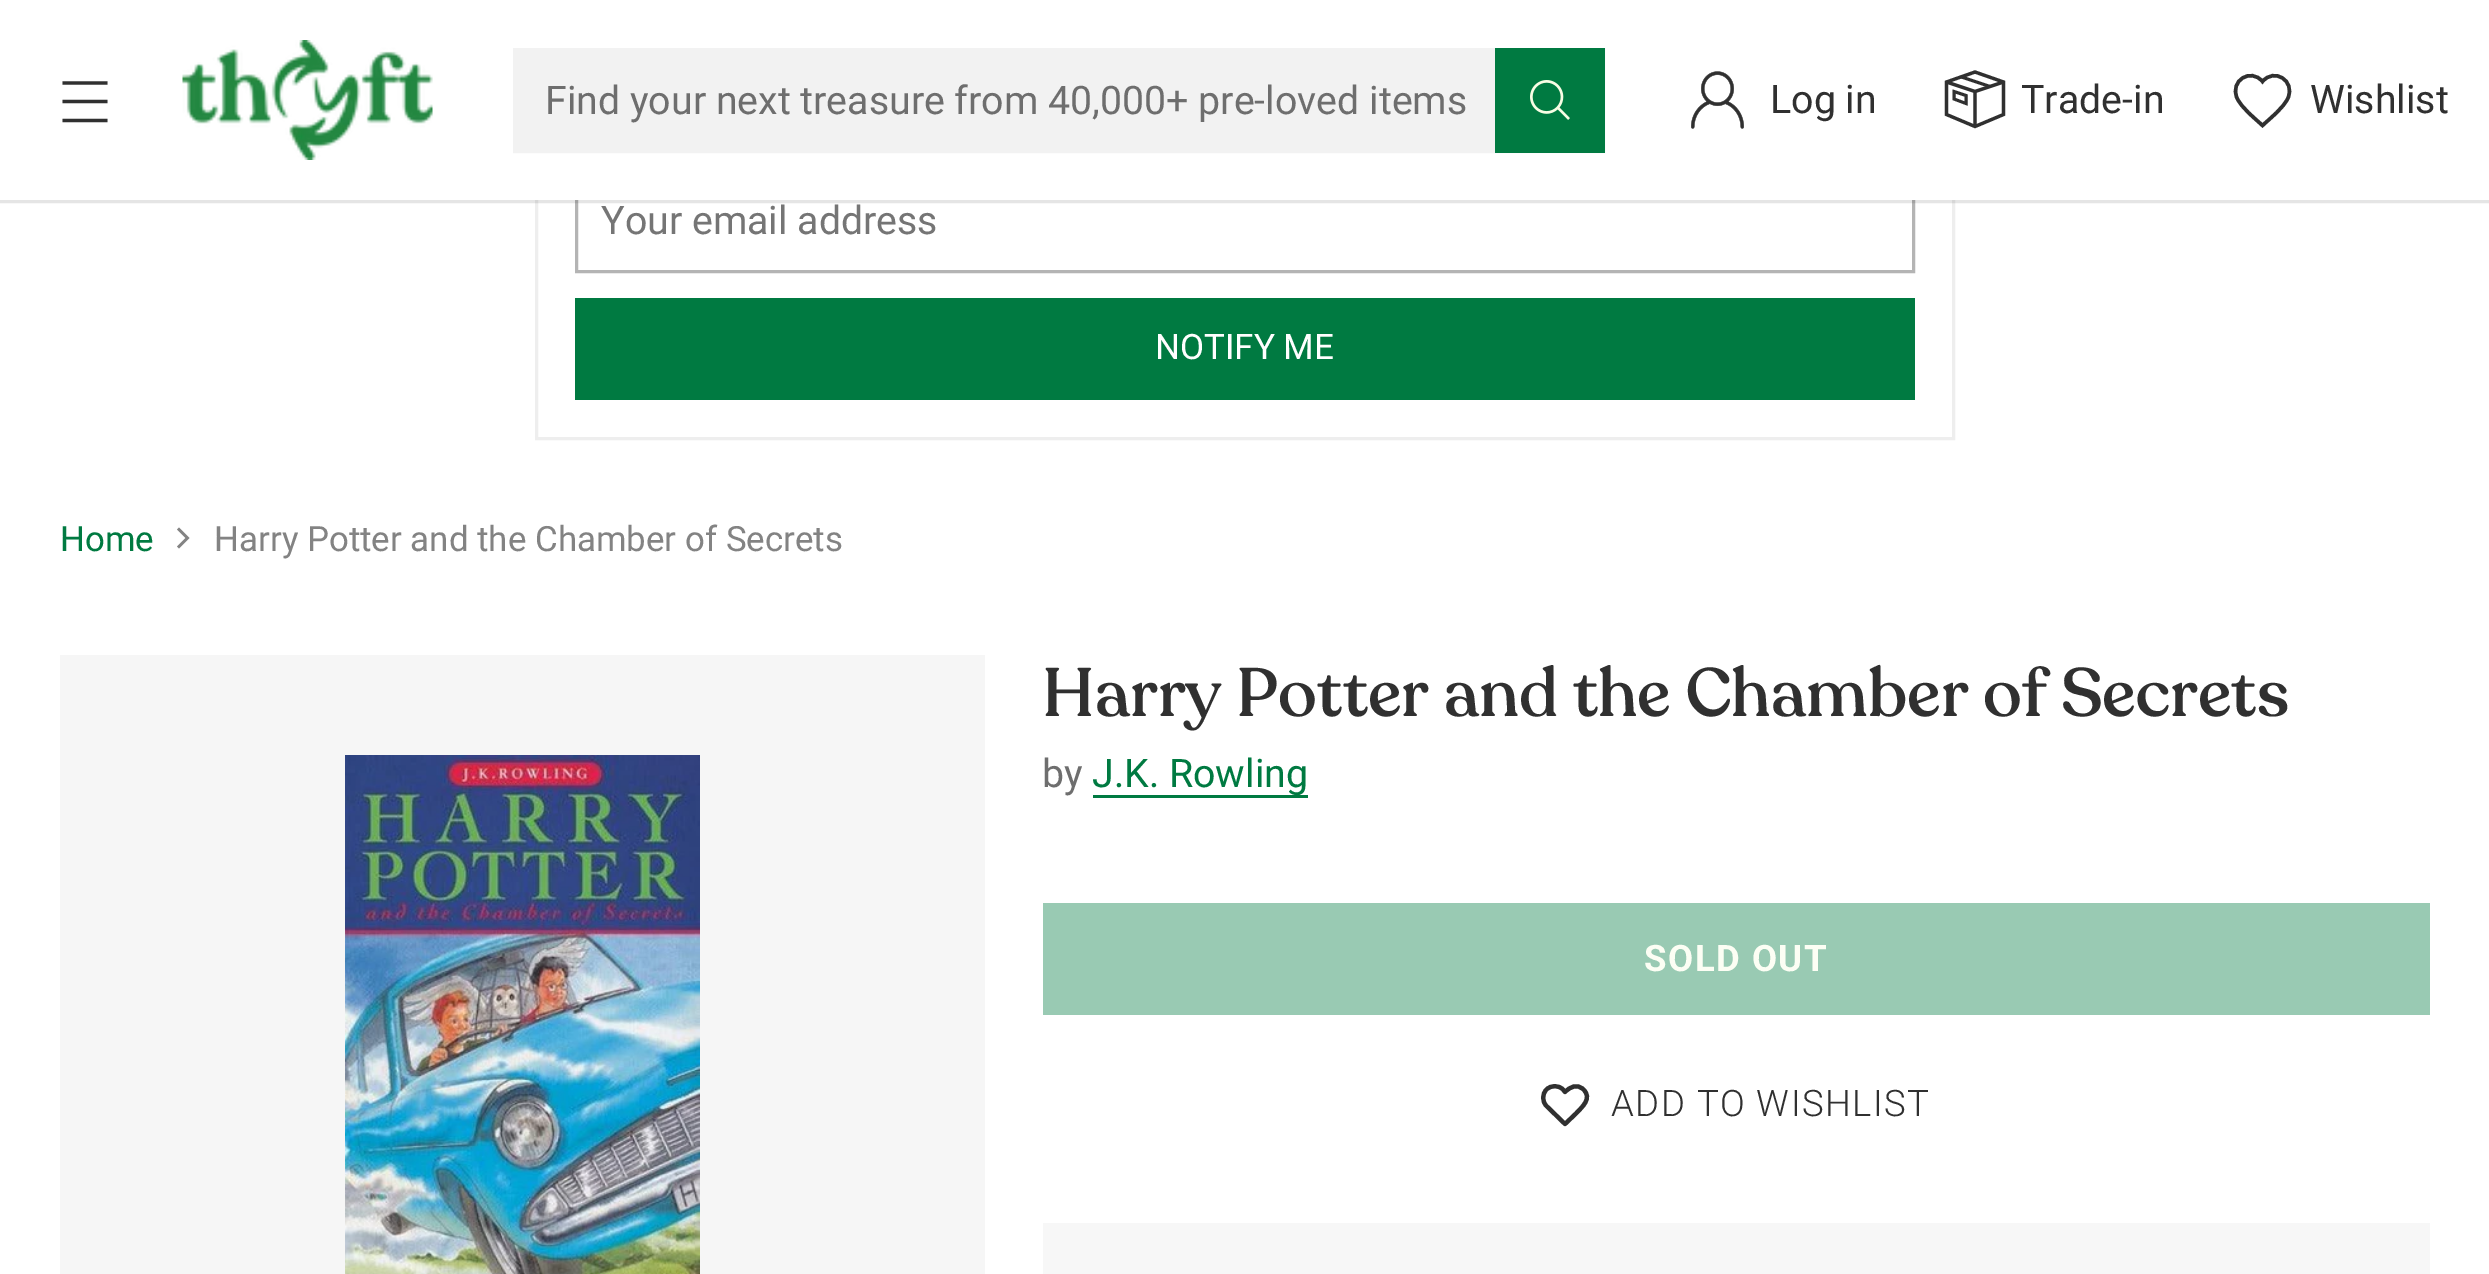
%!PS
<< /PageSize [2489 1274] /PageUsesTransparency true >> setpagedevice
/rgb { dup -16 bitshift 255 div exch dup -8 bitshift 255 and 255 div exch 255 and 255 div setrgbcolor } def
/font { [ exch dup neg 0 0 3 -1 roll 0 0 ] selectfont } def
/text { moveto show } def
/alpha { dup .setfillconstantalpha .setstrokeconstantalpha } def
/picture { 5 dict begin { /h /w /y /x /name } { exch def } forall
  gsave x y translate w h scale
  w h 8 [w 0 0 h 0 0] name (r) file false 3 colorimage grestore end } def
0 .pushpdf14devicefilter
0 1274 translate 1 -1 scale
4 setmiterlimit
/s1 { /Roboto-Regular 39.3 font 16#6E6E6E rgb } def
/s2 { /Roboto-Regular 39.3 font 16#303030 rgb } def
/s3 { /Roboto-Regular 39.3 font 16#757575 rgb } def
/s4 { /Roboto-Regular 35 font 16#FFFFFF rgb } def
/s5 { /Roboto-Regular 34.9 font 16#007A41 rgb } def
/s6 { /Roboto-Regular 34.9 font 16#838383 rgb } def
/s7 { /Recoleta-Medium 68 font 16#303030 rgb } def
/s8 { /Roboto-Regular 39.3 font 16#007A41 rgb } def
16#FFFFFF rgb
0 0 2489 1274 rectfill
16#EEEEEE rgb
3 setlinewidth
536.5 -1.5 1417 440 rectstroke
16#B4B4B4 rgb
576.5 171.5 1337 100 rectstroke
0.1 alpha
16#000000 rgb
-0.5 -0.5 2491 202 rectstroke
1 alpha
16#FFFFFF rgb
0 0 2489 200 rectfill
16#303030 rgb
3.2 setlinewidth
62.5 101.5 moveto 107.5 101.5 lineto 62.5 83 moveto 107.5 83 lineto 62.5 120.5 moveto 107.5 120.5 lineto stroke
(pic1.raw) 182 40 251 120 picture
16#F2F2F2 rgb
3 setlinewidth
514.5 49.5 1089 102 rectstroke
516 51 979 99 rectfill
s1
(Find your next treasure from 40,000+ pre-loved items) 545 114 text
16#007A41 rgb
1495 48 110 105 rectfill
(pic2.raw) 1530 80 40 40 picture
(pic3.raw) 1691 71 53 58 picture
s2
(Log in) 1770 113 text
3.2 setlinewidth
2003.5 82 moveto 1975 91.5 lineto 1946.5 82 lineto 1975 126.5 moveto 1975 91.5 lineto stroke
2.9 setlinewidth
1961.5 77 moveto 1990 86.5 lineto stroke
3.2 setlinewidth
1975 126.5 moveto 2003.5 114.5 lineto 2003.5 82 lineto 1975 72 lineto 1946.5 82 lineto 1946.5 114.5 lineto closepath stroke
2.9 setlinewidth
1954 91.5 moveto 1966 95.5 lineto 1966 103.5 lineto 1954 99 lineto closepath stroke
(Trade-in) 2021 113 text
3.5 setlinewidth
2262.5 125.5 moveto 2254 117.5 2242 108.5 2237 98 curveto 2229.5 80.5 2251 67.5 2262.5 81.5 curveto 2274 67.5 2295.5 80.5 2288 98 curveto 2283 108.5 2271 117.5 2262.5 125.5 curveto closepath stroke
(Wishlist) 2310 113 text
s3
(Your email address) 601 234 text
16#007A41 rgb
575 298 1340 102 rectfill
s4
(NOTIFY ME) 1155 359 text
s5
(Home) 60 551 text
16#838383 rgb
2.6 setlinewidth
178 547.5 moveto 187.5 538 lineto 178 528.5 lineto stroke
(Harry Potter and the Chamber of Secrets) 214 551 text
16#F6F6F6 rgb
60 655 925 619 rectfill
(pic4.raw) 345 755 355 519 picture
s7
(Harry Potter and the Chamber of Secrets) 1042 716 text
s1
(by) 1042 787 text
16#007A41 rgb
1093 795 215 3 rectfill
(J.K. Rowling) 1092 787 text
16#99CAB3 rgb
1043 903 1387 112 rectfill
/Roboto-Bold 36.5 font
16#FCFEF4 rgb
1644 971 moveto 1.5 0 (SOLD OUT) ashow
16#303030 rgb
4.2 setlinewidth
1 setlinecap
1 setlinejoin
1583.5 1089.5 moveto 1577 1083.5 1570.5 1086.5 1565 1092 curveto 1563 1089.5 lineto 1558.5 1085 1551 1085 1546.5 1089.5 curveto 1542 1094 1542 1101.5 1546.5 1106 curveto 1565 1124 lineto 1576 1113.5 lineto 1582 1107 1592.5 1098.5 1583.5 1089.5 curveto closepath stroke
/Roboto-Light 36.5 font
1611 1116 moveto 1.5 0 (ADD TO WISHLIST) ashow
16#F7F7F7 rgb
1043 1223 1387 51 rectfill
.poppdf14devicefilter showpage
